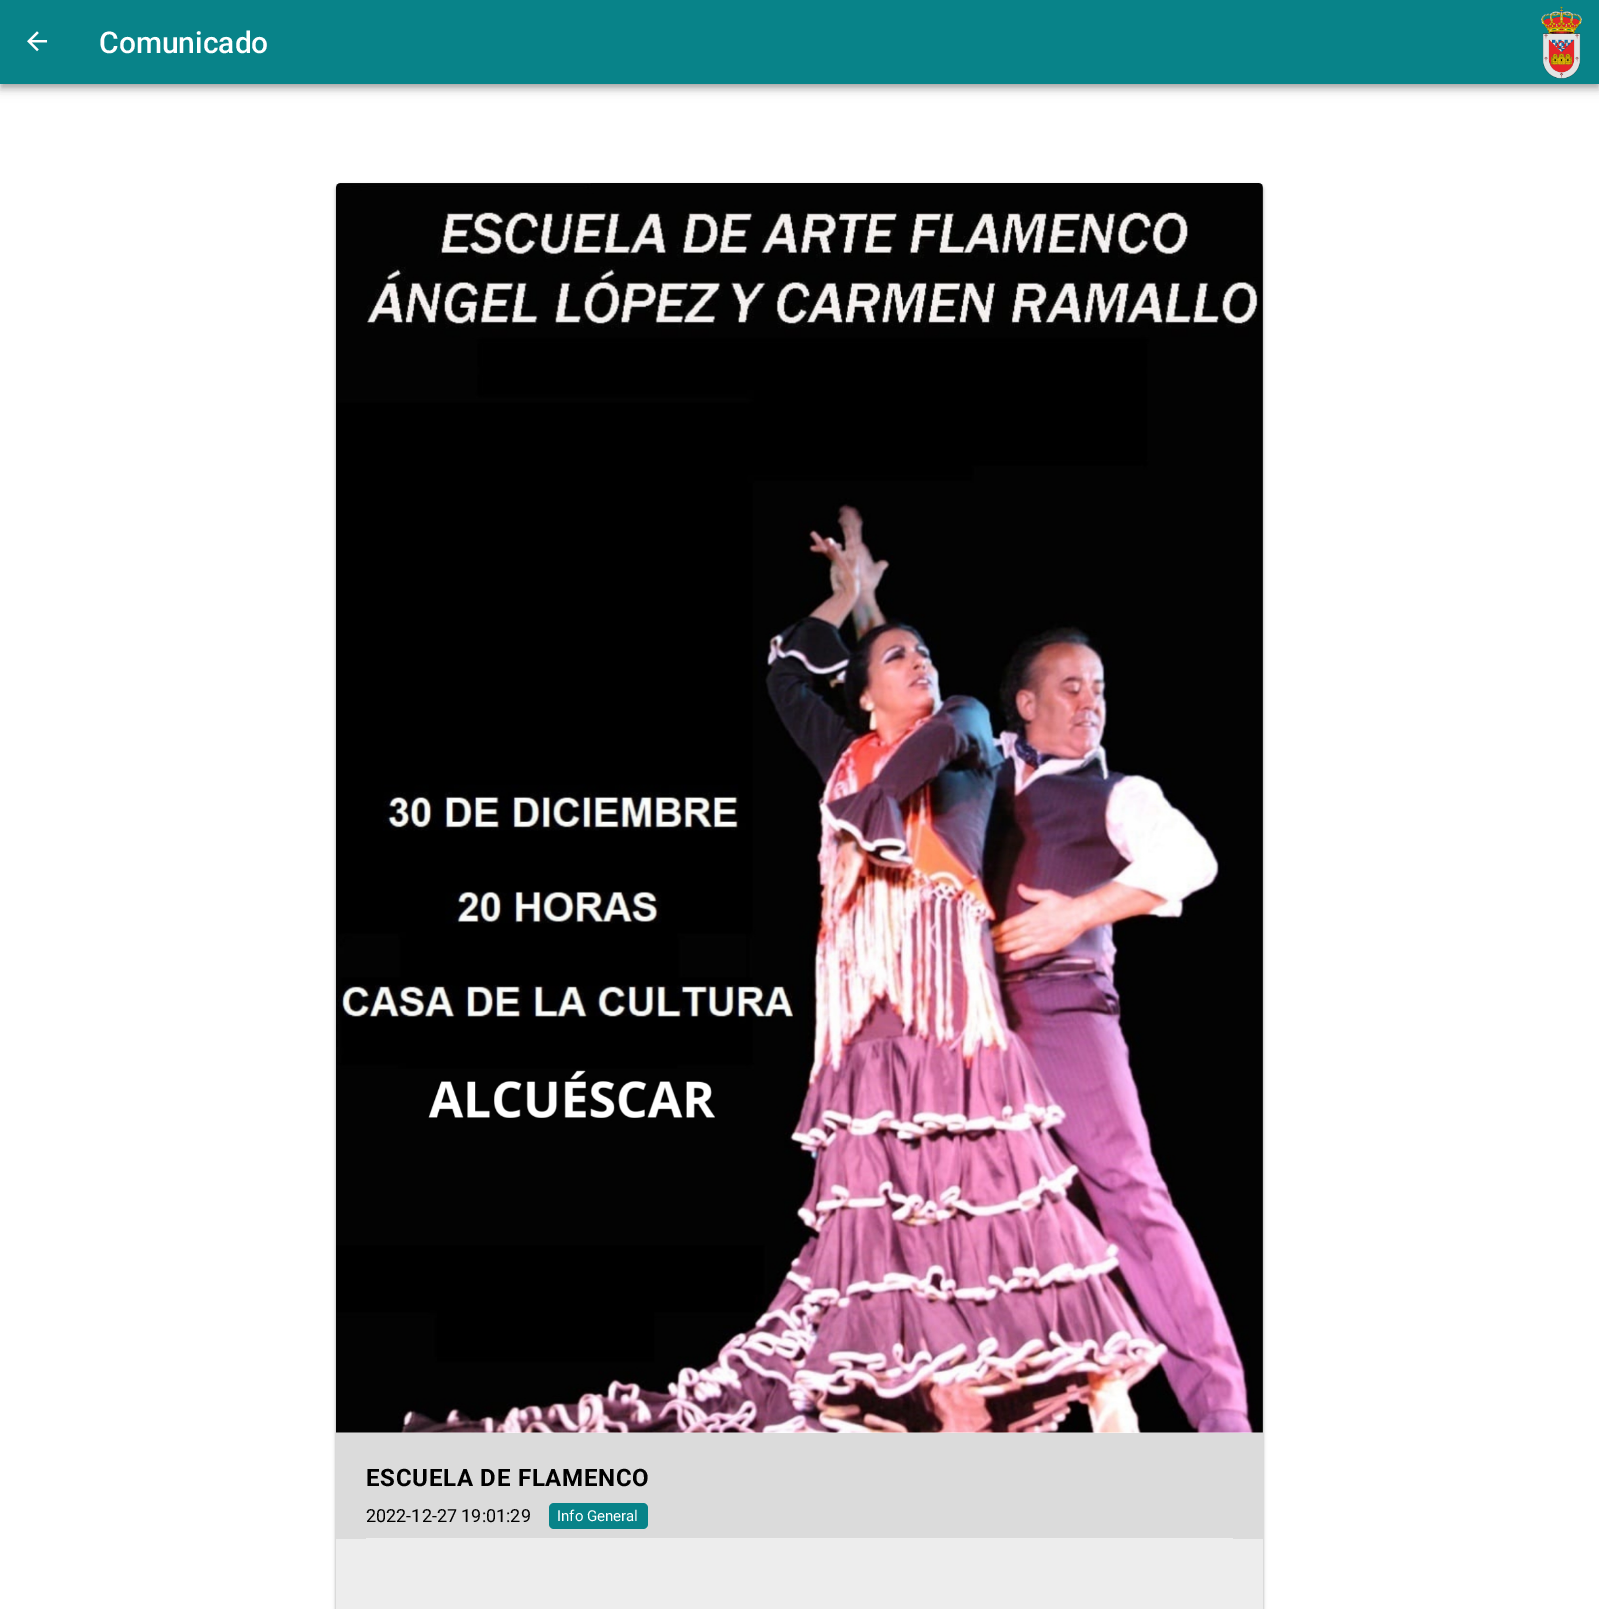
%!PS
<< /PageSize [1599 1609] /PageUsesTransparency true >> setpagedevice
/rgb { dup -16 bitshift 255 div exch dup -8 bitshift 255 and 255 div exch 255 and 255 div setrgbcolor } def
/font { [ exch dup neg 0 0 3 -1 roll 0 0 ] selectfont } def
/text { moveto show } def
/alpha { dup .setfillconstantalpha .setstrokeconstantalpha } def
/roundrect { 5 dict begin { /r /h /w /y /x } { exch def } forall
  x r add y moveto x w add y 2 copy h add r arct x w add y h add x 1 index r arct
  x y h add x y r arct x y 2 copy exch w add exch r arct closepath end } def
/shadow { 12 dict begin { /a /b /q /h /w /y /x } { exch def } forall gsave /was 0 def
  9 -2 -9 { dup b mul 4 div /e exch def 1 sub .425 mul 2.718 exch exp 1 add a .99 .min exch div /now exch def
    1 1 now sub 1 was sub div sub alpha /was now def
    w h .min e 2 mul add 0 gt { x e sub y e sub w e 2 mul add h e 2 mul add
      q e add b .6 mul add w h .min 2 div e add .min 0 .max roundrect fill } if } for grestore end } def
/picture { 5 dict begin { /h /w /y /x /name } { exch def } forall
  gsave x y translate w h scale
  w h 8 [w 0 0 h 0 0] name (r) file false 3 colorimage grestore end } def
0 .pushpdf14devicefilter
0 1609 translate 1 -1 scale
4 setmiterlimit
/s1 { /Roboto-Medium 30 font 16#FFFFFF rgb } def
/s2 { /Roboto-Regular 18 font 16#000000 rgb } def
/s3 { /Roboto-Regular 15 font 16#FFFFFF rgb } def
16#FFFFFF rgb
0 0 1599 1609 rectfill
16#000000 rgb
0 2 1599 84 0 7.5 0.12 shadow
0 6 1599 84 0 4 0.14 shadow
2 5 1596 81 0 3 0.2 shadow
16#088389 rgb
0 0 1599 84 rectfill
(pic1.raw) 27 31 21 21 picture
s1
(Comunicado) 99 53 text
(pic2.raw) 1541 6 41 73 picture
16#000000 rgb
336 185 927 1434 5 1.5 0.24 shadow
336 185 927 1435 5 2 0.12 shadow
(pic3.raw) 336 183 927 1250 picture
16#EDEDED rgb
336 1539 927 70 rectfill
16#DBDBDB rgb
336 1433 927 106 rectfill
/Roboto-Bold 24 font
16#000000 rgb
366 1486 moveto 0.75 0 (ESCUELA DE FLAMENCO) ashow
s2
(2022-12-27 19:01:29) 366 1522 text
16#088389 rgb
549 1503 99 26 5 roundrect fill
s3
(Info General) 557 1521 text
16#EEEEEE rgb
366 1538 867 1 rectfill
.poppdf14devicefilter showpage
